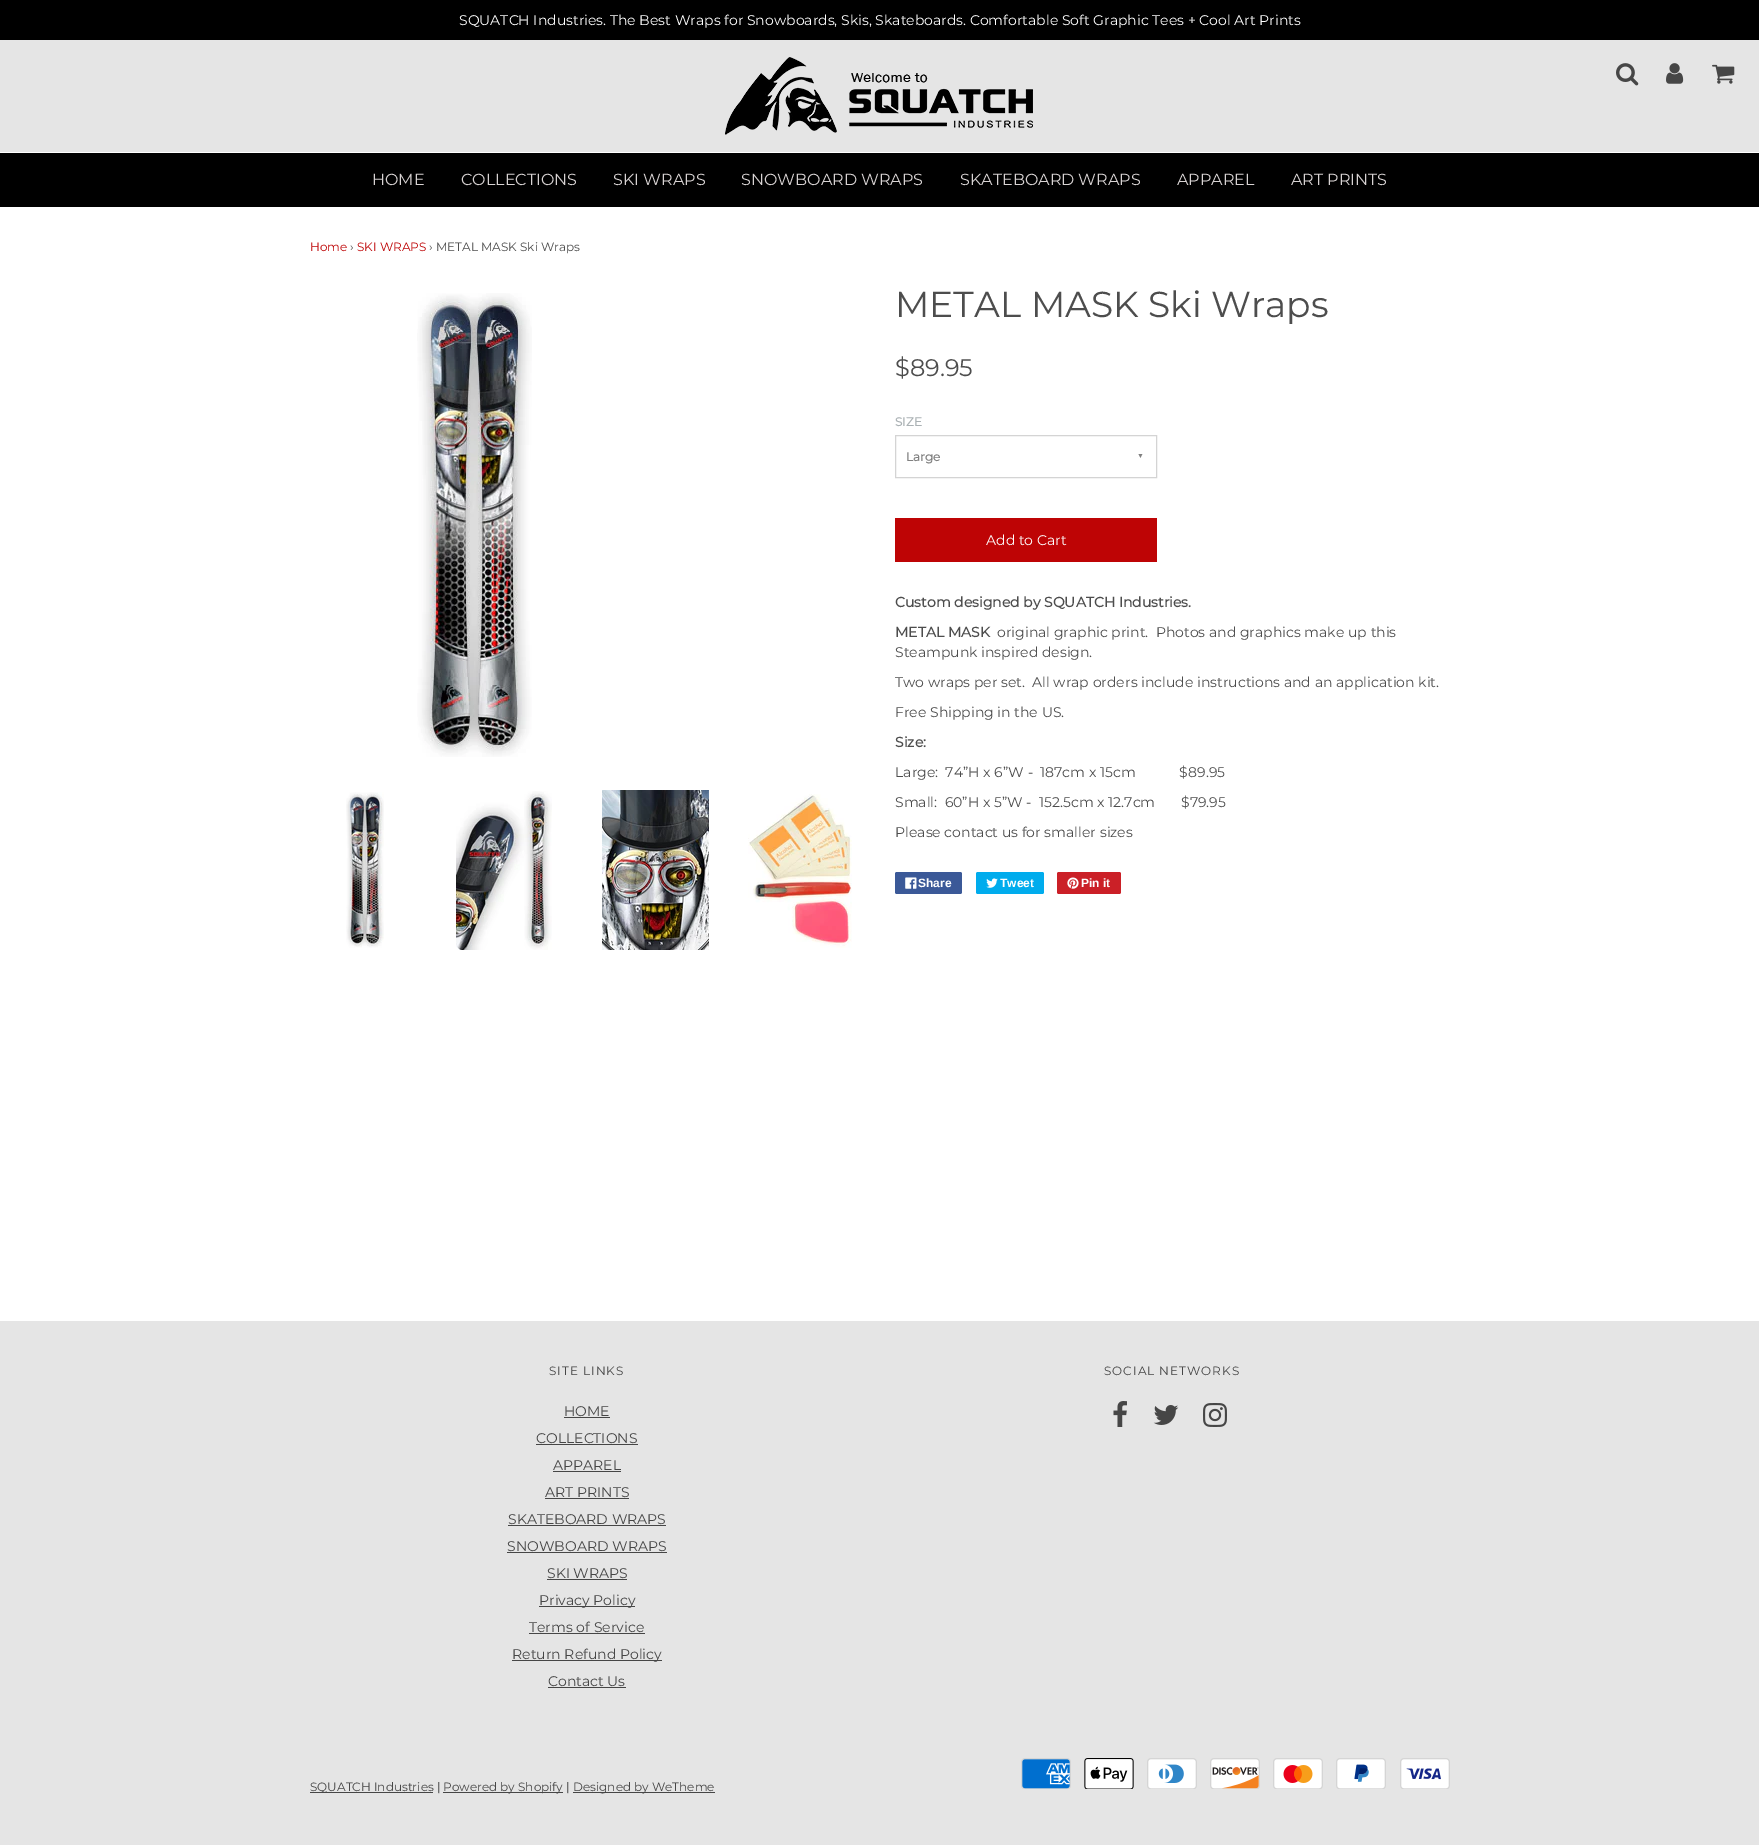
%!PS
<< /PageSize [1760 1845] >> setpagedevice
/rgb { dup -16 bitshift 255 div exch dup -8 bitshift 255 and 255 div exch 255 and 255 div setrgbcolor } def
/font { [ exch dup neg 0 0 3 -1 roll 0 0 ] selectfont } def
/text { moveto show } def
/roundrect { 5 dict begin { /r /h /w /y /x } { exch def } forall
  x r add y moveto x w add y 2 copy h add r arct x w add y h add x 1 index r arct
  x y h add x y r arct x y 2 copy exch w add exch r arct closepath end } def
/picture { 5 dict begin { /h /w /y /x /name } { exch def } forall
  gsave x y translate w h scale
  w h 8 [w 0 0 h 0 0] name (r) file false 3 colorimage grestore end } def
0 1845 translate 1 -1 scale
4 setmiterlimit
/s1 { /Montserrat-Thin 14 font 16#FFFFFF rgb } def
/s2 { /Montserrat-Thin 16 font 16#D8D3D3 rgb } def
/s3 { /Montserrat-Thin 12 font 16#BE0405 rgb } def
/s4 { /Montserrat-Thin 12 font 16#4D4D4D rgb } def
/s5 { /Montserrat-Thin 36 font 16#4D4D4D rgb } def
/s6 { /Montserrat-Thin 24 font 16#4D4D4D rgb } def
/s7 { /Montserrat-Bold 12 font 16#AAB1B4 rgb } def
/s8 { /Montserrat-Bold 12 font 16#808080 rgb } def
/s9 { /LiberationSans-Bold 7 font 16#808080 rgb } def
/s10 { /Montserrat-Bold 14 font 16#4D4D4D rgb } def
/s11 { /Montserrat-Thin 14 font 16#4D4D4D rgb } def
/s12 { /LiberationSans-Bold 12 font 16#FFFFFF rgb } def
/s13 { /Montserrat-Thin 14 font 16#464646 rgb } def
/s14 { /Montserrat-Thin 12 font 16#464646 rgb } def
16#FFFFFF rgb
0 0 1760 1845 rectfill
16#000000 rgb
0 0 1759 40 rectfill
s1
(SQUATCH Industries. The Best Wraps for Snowboards, Skis, Skateboards. Comfortable Soft Graphic Tees + Cool Art Prints) 459 25 text
16#E5E5E5 rgb
0 40 1759 112 rectfill
(pic1.raw) 725 57 308 78 picture
(pic2.raw) 1616 63 23 23 picture
(pic3.raw) 1666 63 18 21 picture
(pic4.raw) 1712 64 23 20 picture
16#000000 rgb
0 153 1759 54 rectfill
s2
(HOME) 372 185 text
(COLLECTIONS) 461 185 text
(SKI WRAPS) 613 185 text
(SNOWBOARD WRAPS) 741 185 text
(SKATEBOARD WRAPS) 960 185 text
(APPAREL) 1177 185 text
(ART PRINTS) 1291 185 text
s3
(Home) 310 251 text
s4
(›) 350 251 text
s3
(SKI WRAPS) 357 251 text
s4
(› METAL MASK Ski Wraps) 429 251 text
(pic5.raw) 417 293 115 464 picture
(pic6.raw) 346 792 38 156 picture
(pic7.raw) 456 791 96 159 picture
(pic8.raw) 602 790 107 160 picture
(pic9.raw) 748 794 104 154 picture
s5
(METAL MASK Ski Wraps) 895 317 text
s6
($89.95) 895 376 text
s7
(SIZE) 895 426 text
16#D4D4D4 rgb
895.5 435.5 261 42 rectstroke
s8
(Large) 906 461 text
s9
(▼) 1137 458 text
16#BE0405 rgb
895 518 262 44 rectfill
s1
(Add to Cart) 986 545 text
s10
(Custom designed by SQUATCH Industries.) 895 607 text
(METAL MASK) 895 637 text
s11
(original graphic print.  Photos and graphics make up this) 997 637 text
(Steampunk inspired design.) 895 657 text
(Two wraps per set.) 895 687 text
(All wrap orders include instructions and an application kit.) 1032 687 text
(Free Shipping in the US.) 895 717 text
s10
(Size:) 895 747 text
s11
(Large:  74”H x 6”W -) 895 777 text
(187cm x 15cm            $89.95) 1040 777 text
(Small:  60”H x 5”W -) 895 807 text
(152.5cm x 12.7cm) 1039 807 text
($79.95) 1181 807 text
(Please contact us for smaller sizes) 895 837 text
16#3B5998 rgb
895 872 67 22 2 roundrect fill
(pic10.raw) 905 877 12 12 picture
s12
(Share) 918 887 text
16#00ACED rgb
976 872 68 22 2 roundrect fill
(pic11.raw) 986 878 12 10 picture
s12
(Tweet) 1000 887 text
16#CB2027 rgb
1057 872 64 22 2 roundrect fill
(pic12.raw) 1067 877 12 12 picture
s12
(Pin it) 1081 887 text
16#E5E5E5 rgb
0 1321 1759 524 rectfill
/Montserrat-Thin 12 font
16#464646 rgb
549 1375 moveto 1 0 (SITE LINKS) ashow
s13
(HOME) 564 1416 text
564 1417 46 1 rectfill
(COLLECTIONS) 536 1443 text
536 1444 102 1 rectfill
(APPAREL) 553 1470 text
553 1471 68 1 rectfill
(ART PRINTS) 545 1497 text
545 1498 84 1 rectfill
(SKATEBOARD WRAPS) 508 1524 text
508 1525 158 1 rectfill
(SNOWBOARD WRAPS) 507 1551 text
507 1552 160 1 rectfill
(SKI WRAPS) 547 1578 text
547 1579 80 1 rectfill
539 1606 96 1 rectfill
(Privacy Policy) 539 1605 text
(Terms of Service) 529 1632 text
529 1633 116 1 rectfill
512 1660 150 1 rectfill
(Return Refund Policy) 512 1659 text
(Contact Us) 548 1686 text
548 1687 78 1 rectfill
/Montserrat-Thin 12 font
1104 1375 moveto 1 0 (SOCIAL NETWORKS) ashow
(pic13.raw) 1113 1401 14 26 picture
(pic14.raw) 1153 1405 26 20 picture
(pic15.raw) 1203 1403 24 24 picture
310 1792 123 1 rectfill
(SQUATCH Industries |) 310 1791 text
443 1792 120 1 rectfill
(Powered by Shopify |) 443 1791 text
573 1792 142 1 rectfill
(Designed by WeTheme) 573 1791 text
(pic16.raw) 1021 1758 50 31 picture
(pic17.raw) 1084 1758 50 31 picture
(pic18.raw) 1147 1758 50 31 picture
(pic19.raw) 1210 1758 50 31 picture
(pic20.raw) 1273 1758 50 31 picture
(pic21.raw) 1336 1758 50 31 picture
(pic22.raw) 1400 1758 50 31 picture
showpage
